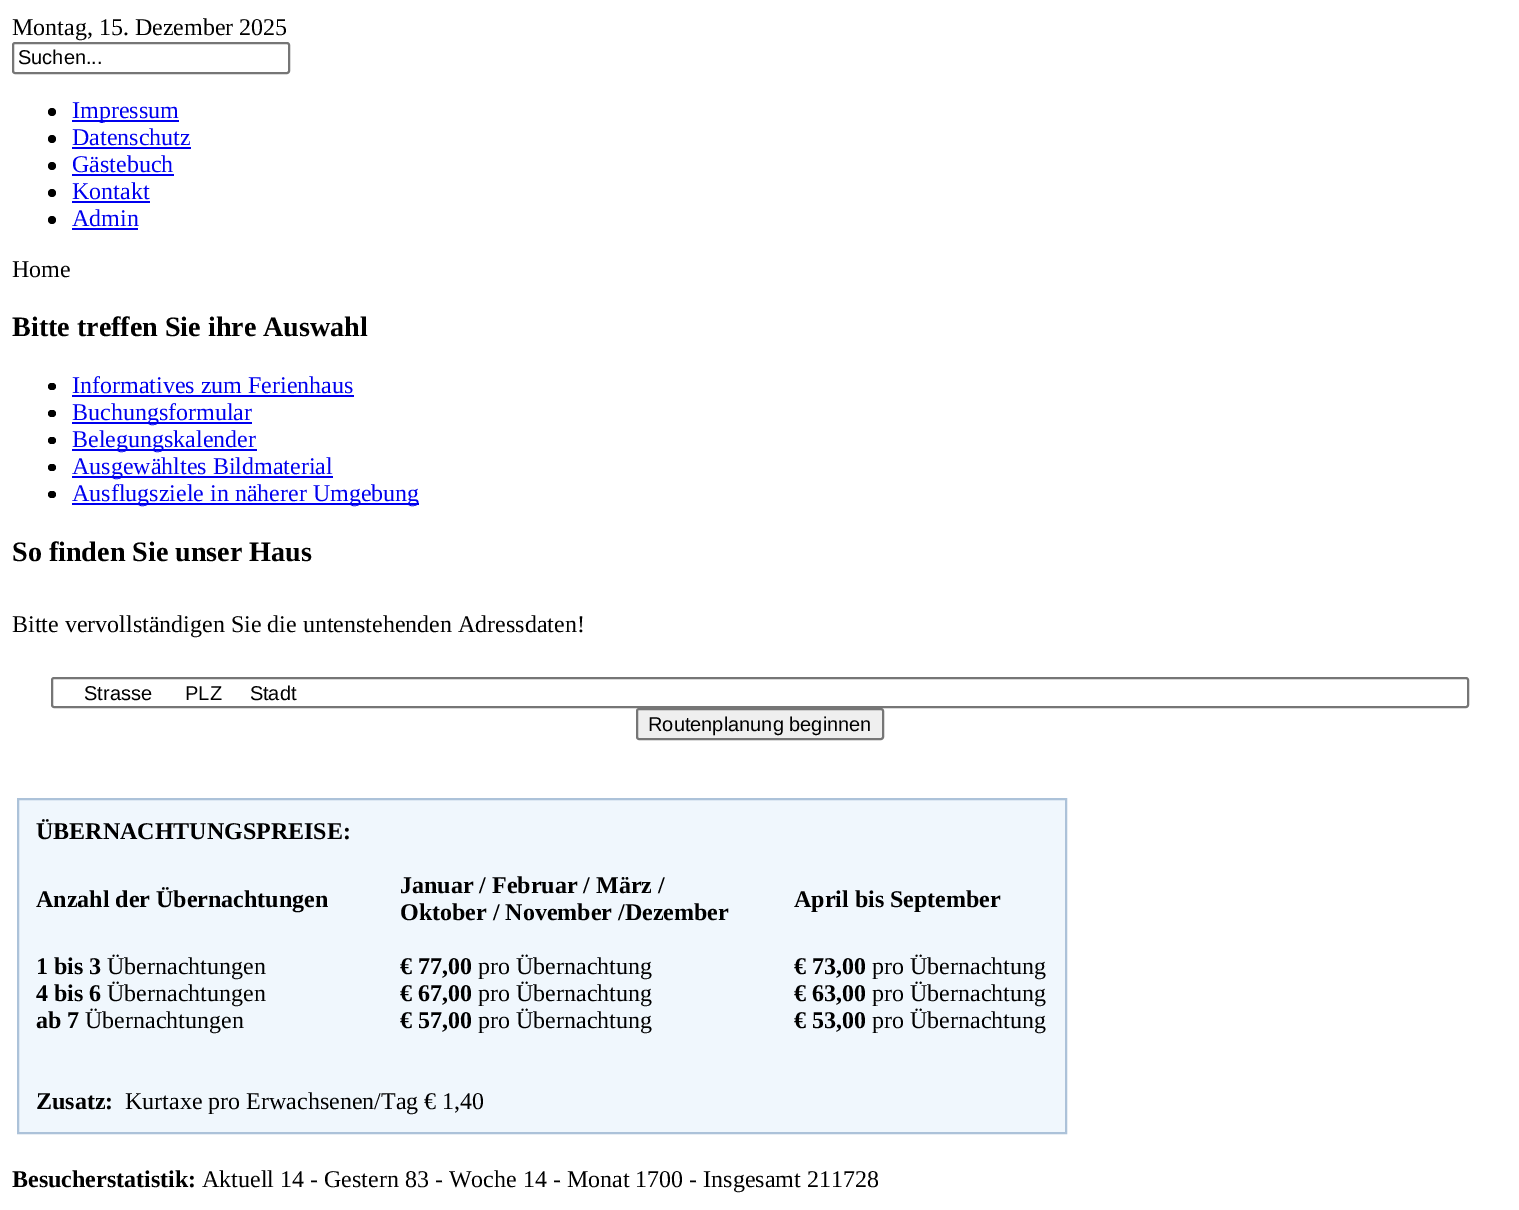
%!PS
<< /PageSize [1519 1210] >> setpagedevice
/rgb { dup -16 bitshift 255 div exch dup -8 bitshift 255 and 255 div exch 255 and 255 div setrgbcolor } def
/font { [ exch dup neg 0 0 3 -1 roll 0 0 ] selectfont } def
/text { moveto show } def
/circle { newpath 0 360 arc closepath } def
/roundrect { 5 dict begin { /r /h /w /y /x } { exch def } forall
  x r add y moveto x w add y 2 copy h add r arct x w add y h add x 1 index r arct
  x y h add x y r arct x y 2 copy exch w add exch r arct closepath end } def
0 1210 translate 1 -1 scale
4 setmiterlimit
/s1 { /LiberationSerif-Regular 24 font 16#000000 rgb } def
/s2 { /LiberationSans-Regular 20 font 16#000000 rgb } def
/s3 { /LiberationSerif-Regular 24 font 16#0000EE rgb } def
/s4 { /LiberationSerif-Bold 28.1 font 16#000000 rgb } def
/s5 { /LiberationSerif-Bold 24 font 16#000000 rgb } def
16#FFFFFF rgb
0 0 1519 1210 rectfill
s1
(Montag, 15. Dezember 2025) 12 35 text
16#767676 rgb
2 setlinewidth
13 43 276 30 2 roundrect stroke
s2
(Suchen...) 18 64 text
52 112 4 circle fill
16#0000EE rgb
72 120 107 2 rectfill
s3
(Impressum) 72 118 text
16#000000 rgb
52 139 4 circle fill
s3
(Datenschutz) 72 145 text
72 147 119 2 rectfill
16#000000 rgb
52 166 4 circle fill
s3
(Gästebuch) 72 172 text
72 174 102 2 rectfill
16#000000 rgb
52 193 4 circle fill
s3
(Kontakt) 72 199 text
72 201 78 2 rectfill
16#000000 rgb
52 220 4 circle fill
s3
(Admin) 72 226 text
72 228 66 2 rectfill
s1
(Home) 12 277 text
s4
(Bitte treffen Sie ihre Auswahl) 12 336 text
48 383 8 7 3.5 roundrect fill
s3
(Informatives zum Ferienhaus) 72 393 text
72 395 282 2 rectfill
16#000000 rgb
48 410 8 7 3.5 roundrect fill
16#0000EE rgb
72 422 180 2 rectfill
(Buchungsformular) 72 420 text
16#000000 rgb
48 437 8 7 3.5 roundrect fill
16#0000EE rgb
72 449 185 2 rectfill
(Belegungskalender) 72 447 text
16#000000 rgb
48 464 8 7 3.5 roundrect fill
16#0000EE rgb
72 476 261 2 rectfill
(Ausgewähltes Bildmaterial) 72 474 text
16#000000 rgb
48 491 8 7 3.5 roundrect fill
16#0000EE rgb
72 503 347 2 rectfill
(Ausflugsziele in näherer Umgebung) 72 501 text
s4
(So finden Sie unser Haus) 12 561 text
s1
(Bitte vervollständigen Sie die untenstehenden Adressdaten!) 12 632 text
16#767676 rgb
52 678 1416 29 2 roundrect stroke
s2
(Strasse      PLZ     Stadt) 84 700 text
16#EFEFEF rgb
637 709 246 30 2 roundrect gsave fill grestore
16#767676 rgb
stroke
s2
(Routenplanung beginnen) 648 731 text
16#F0F7FD rgb
18 799 moveto 1066 799 lineto 1066 1133 lineto 18 1133 lineto closepath gsave fill grestore
16#ACC2D9 rgb
stroke
s5
(ÜBERNACHTUNGSPREISE:) 36 839 text
(Anzahl der Übernachtungen) 36 907 text
(Januar / Februar / März /) 400 893 text
(Oktober / November /Dezember) 400 920 text
(April bis September) 794 907 text
(1 bis 3) 36 974 text
s1
(Übernachtungen) 107 974 text
s5
(€ 77,00) 400 974 text
s1
(pro Übernachtung) 478 974 text
s5
(€ 73,00) 794 974 text
s1
(pro Übernachtung) 872 974 text
s5
(4 bis 6) 36 1001 text
s1
(Übernachtungen) 107 1001 text
s5
(€ 67,00) 400 1001 text
s1
(pro Übernachtung) 478 1001 text
s5
(€ 63,00) 794 1001 text
s1
(pro Übernachtung) 872 1001 text
s5
(ab 7) 36 1028 text
s1
(Übernachtungen) 85 1028 text
s5
(€ 57,00) 400 1028 text
s1
(pro Übernachtung) 478 1028 text
s5
(€ 53,00) 794 1028 text
s1
(pro Übernachtung) 872 1028 text
s5
(Zusatz:) 36 1109 text
s1
(Kurtaxe pro Erwachsenen/Tag € 1,40) 125 1109 text
s5
(Besucherstatistik:) 12 1187 text
s1
(Aktuell 14 - Gestern 83 - Woche 14 - Monat 1700 - Insgesamt 211728) 202 1187 text
showpage
